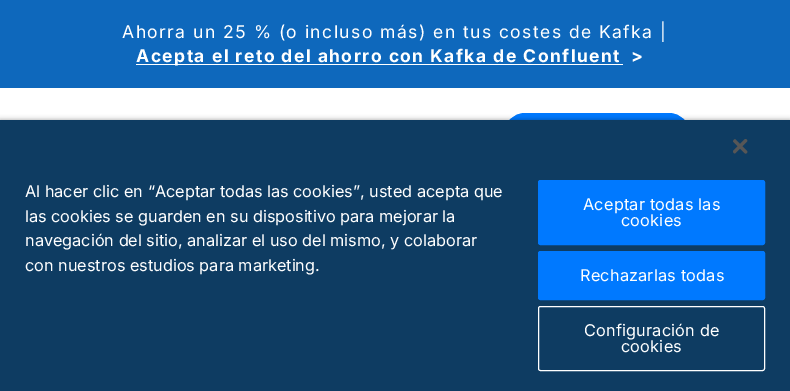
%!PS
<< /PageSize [790 391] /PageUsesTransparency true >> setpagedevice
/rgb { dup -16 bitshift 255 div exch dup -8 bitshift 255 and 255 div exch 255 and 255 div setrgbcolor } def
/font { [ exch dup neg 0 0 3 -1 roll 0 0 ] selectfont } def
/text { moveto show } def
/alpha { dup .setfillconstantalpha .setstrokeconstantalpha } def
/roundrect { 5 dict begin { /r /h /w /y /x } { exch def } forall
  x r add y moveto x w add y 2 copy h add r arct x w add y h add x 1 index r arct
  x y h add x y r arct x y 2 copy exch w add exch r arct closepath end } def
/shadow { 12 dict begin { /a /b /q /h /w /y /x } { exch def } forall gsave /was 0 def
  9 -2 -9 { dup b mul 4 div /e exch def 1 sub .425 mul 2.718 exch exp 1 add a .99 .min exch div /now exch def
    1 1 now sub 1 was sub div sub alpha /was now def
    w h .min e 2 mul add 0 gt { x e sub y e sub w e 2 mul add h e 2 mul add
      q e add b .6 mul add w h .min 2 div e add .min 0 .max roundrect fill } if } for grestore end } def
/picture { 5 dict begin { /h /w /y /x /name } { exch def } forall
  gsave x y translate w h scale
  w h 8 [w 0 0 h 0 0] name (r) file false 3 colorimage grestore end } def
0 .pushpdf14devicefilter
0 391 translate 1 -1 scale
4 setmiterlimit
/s1 { /Inter-Regular 16.25 font 16#FFFFFF rgb } def
16#0E68BC rgb
0 0 790 391 rectfill
/Inter-Regular 17.5 font
16#FFFFFF rgb
122 38 moveto 1.45 0 (Ahorra un 25 % \(o incluso más\) en tus costes de Kafka |) ashow
136 64 487 1 rectfill
/Inter-Bold 17.5 font
136 62 moveto 1.45 0 (Acepta el reto del ahorro con Kafka de Confluent) ashow
631 62 moveto 1.45 0 (>) ashow
0 88 790 32 rectfill
16#0079FF rgb
504.5 113.5 185 41 20.5 roundrect gsave fill grestore
stroke
16#000000 rgb
0 120 790 271 0 2.5 0.35 shadow
16#0E3C62 rgb
0 120 790 271 rectfill
(pic1.raw) 733 139 15 15 picture
s1
(Al hacer clic en “Aceptar todas las cookies”, usted acepta que) 25 197 text
(las cookies se guarden en su dispositivo para mejorar la) 25 222 text
(navegación del sitio, analizar el uso del mismo, y colaborar) 25 246 text
(con nuestros estudios para marketing.) 25 271 text
16#0079FF rgb
538.5 180.5 226 64 2 roundrect gsave fill grestore
stroke
16#FFFFFF rgb
583 210 moveto 0.2 0 (Aceptar todas las) ashow
621 226 moveto 0.2 0 (cookies) ashow
16#0079FF rgb
538.5 251.5 226 48 2 roundrect gsave fill grestore
stroke
16#FFFFFF rgb
580 281 moveto 0.2 0 (Rechazarlas todas) ashow
538.5 306.5 226 64 2 roundrect stroke
584 336 moveto 0.2 0 (Configuración de) ashow
621 352 moveto 0.2 0 (cookies) ashow
.poppdf14devicefilter showpage
